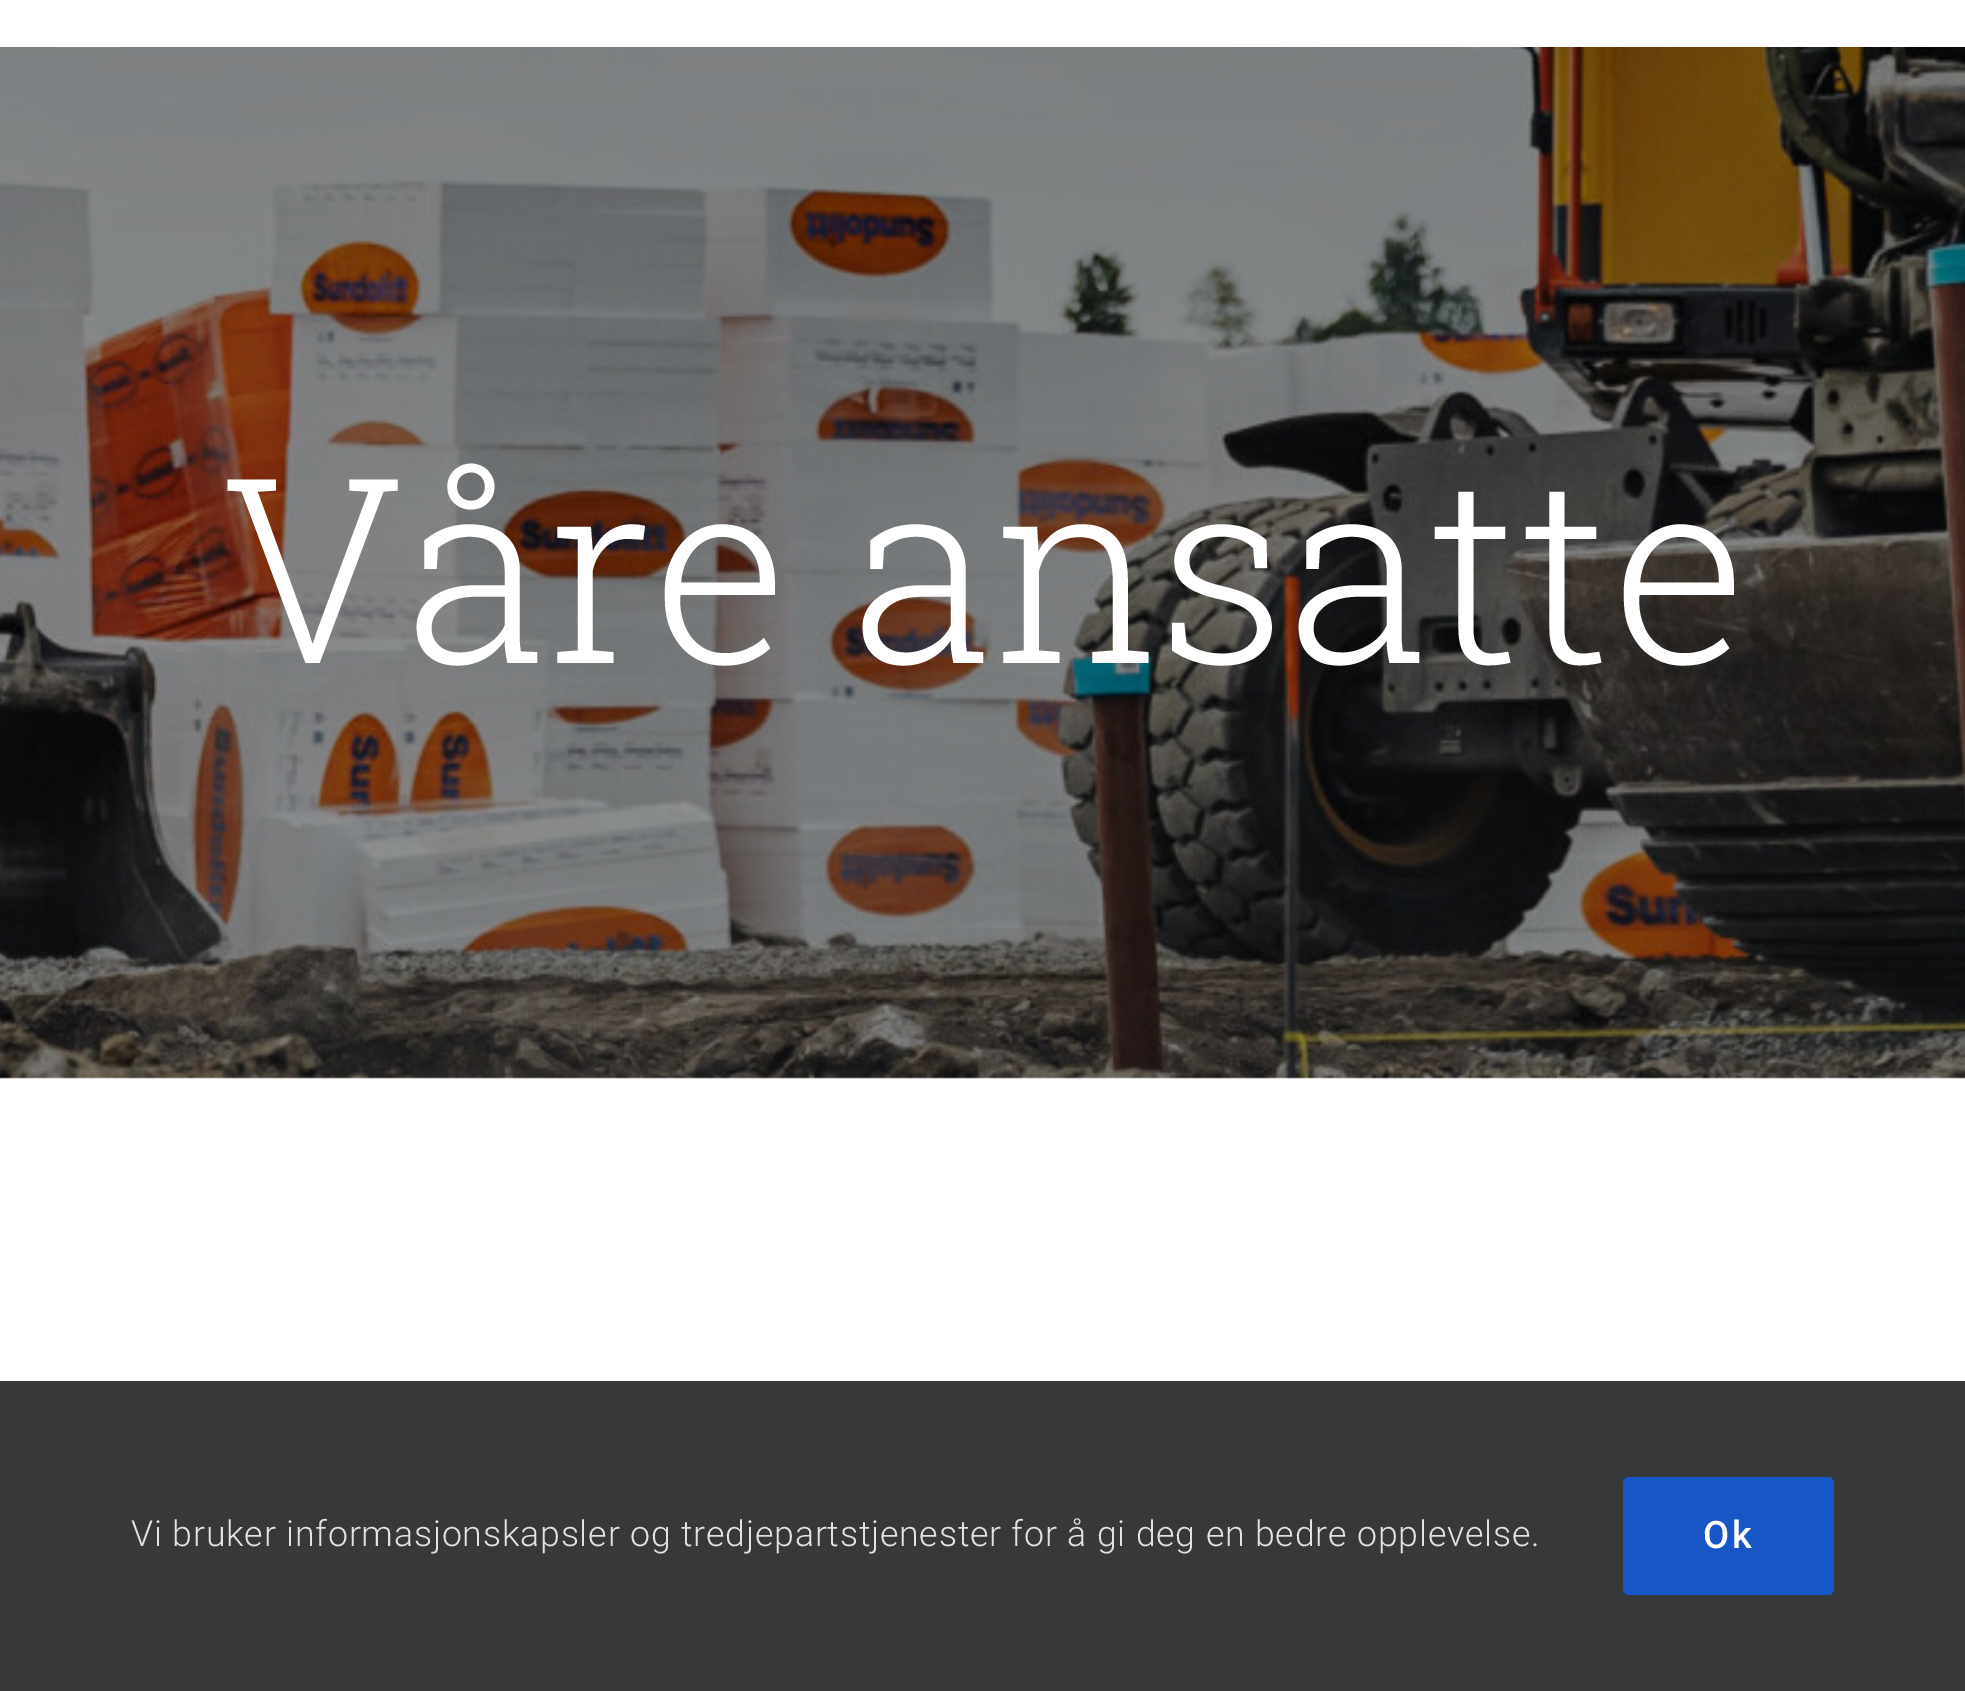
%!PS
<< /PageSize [1965 1691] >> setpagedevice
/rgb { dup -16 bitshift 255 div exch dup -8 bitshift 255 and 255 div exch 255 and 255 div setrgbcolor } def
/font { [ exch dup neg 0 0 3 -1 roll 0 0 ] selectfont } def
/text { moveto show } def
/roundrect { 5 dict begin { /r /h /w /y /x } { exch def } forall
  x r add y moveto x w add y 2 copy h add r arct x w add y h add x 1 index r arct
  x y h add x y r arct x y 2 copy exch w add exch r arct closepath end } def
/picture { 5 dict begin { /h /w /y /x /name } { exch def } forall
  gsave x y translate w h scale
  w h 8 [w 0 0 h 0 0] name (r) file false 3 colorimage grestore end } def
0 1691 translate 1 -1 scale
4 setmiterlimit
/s1 { /RobotoSlab-Light 258.5 font 16#FFFFFF rgb } def
16#FFFFFF rgb
0 0 1965 1691 rectfill
(pic1.raw) 0 47 1965 1032 picture
s1
(Våre ansatte) 220 663 text
16#363839 rgb
0 1381 1965 310 rectfill
/Roboto-Light 35.75 font
16#E2E2E2 rgb
131 1546 moveto 0.78 0 (Vi bruker informasjonskapsler og tredjepartstjenester for å gi deg en bedre opplevelse.) ashow
16#1756C4 rgb
1623 1477 211 118 6 roundrect fill
/Roboto-Medium 38 font
16#FFFFFF rgb
1703 1548 moveto 3 0 (Ok) ashow
showpage
